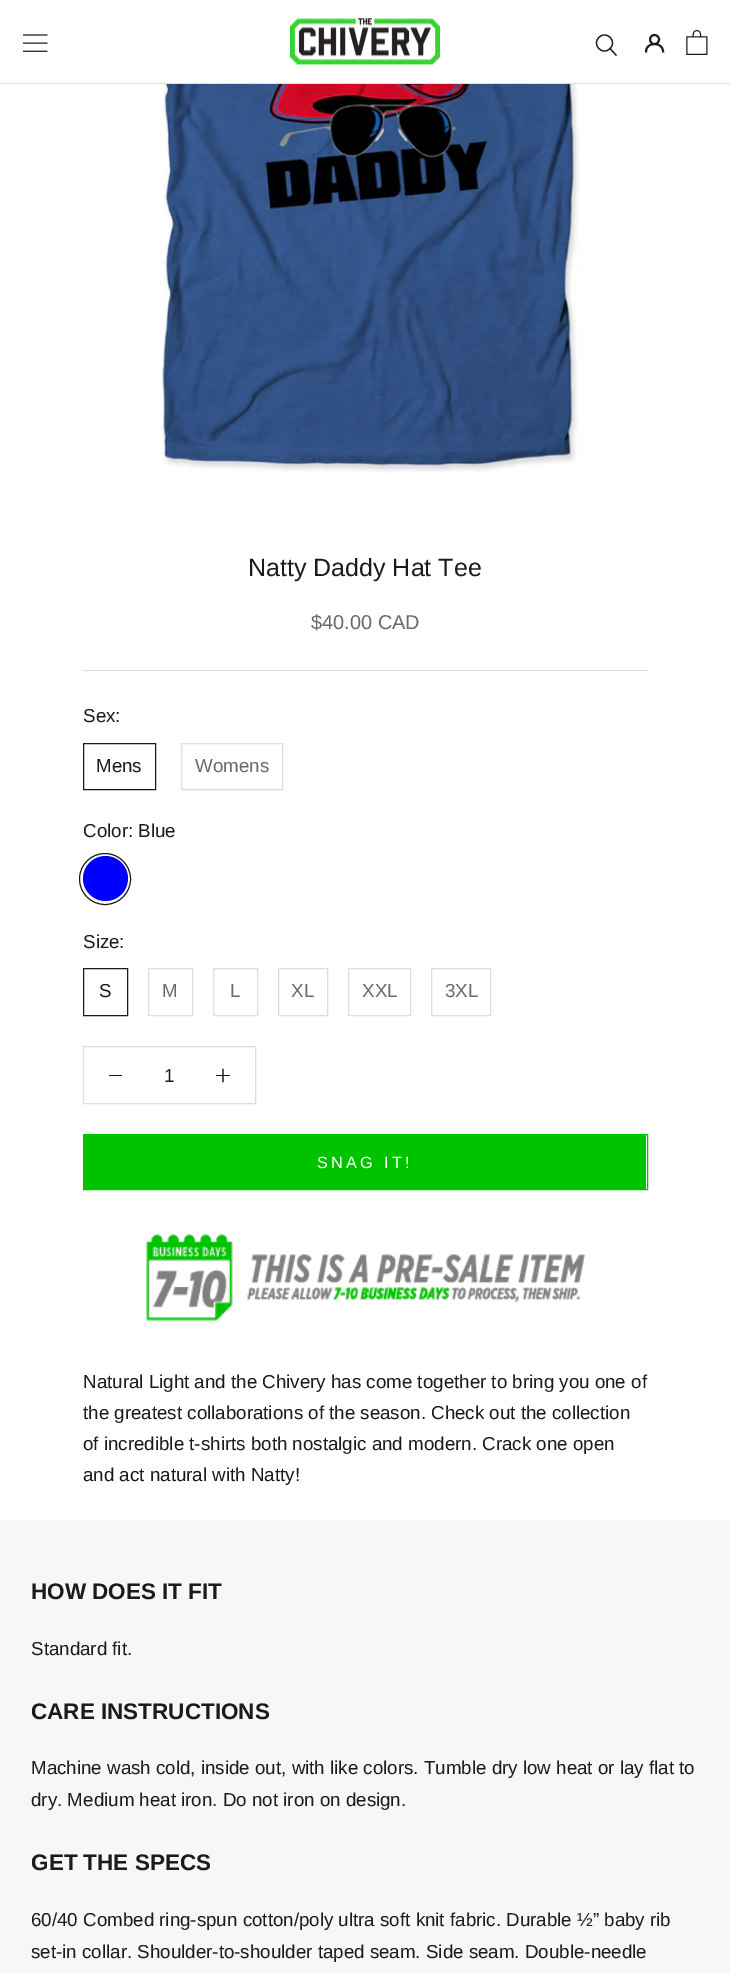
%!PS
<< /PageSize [730 1973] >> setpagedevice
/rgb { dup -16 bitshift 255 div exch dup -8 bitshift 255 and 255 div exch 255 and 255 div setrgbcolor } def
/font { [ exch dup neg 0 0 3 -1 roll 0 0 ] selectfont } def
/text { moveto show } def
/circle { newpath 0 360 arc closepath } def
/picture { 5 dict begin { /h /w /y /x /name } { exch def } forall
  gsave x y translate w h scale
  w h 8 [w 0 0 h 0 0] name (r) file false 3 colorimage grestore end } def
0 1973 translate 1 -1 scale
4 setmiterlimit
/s1 { /LiberationSans-Regular 25 font 16#1C1B1B rgb } def
/s2 { /LiberationSans-Regular 20 font 16#6A6A6A rgb } def
/s3 { /LiberationSans-Regular 18.75 font 16#1C1B1B rgb } def
/s4 { /LiberationSans-Regular 18.75 font 16#6A6A6A rgb } def
/s5 { /LiberationSans-Bold 22.5 font 16#1C1B1B rgb } def
16#FFFFFF rgb
0 0 730 1973 rectfill
16#DDDDDD rgb
0 83 730 1 rectfill
(pic1.raw) 23 34 25 18 picture
(pic2.raw) 290 18 150 47 picture
16#1C1B1B rgb
1.2 setlinewidth
2 setlinecap
616 55 moveto 610 48.5 lineto stroke
0 setlinecap
604.5 43 8 circle stroke
1.9 setlinewidth
2 setlinecap
646 51.5 moveto 646 41.5 663 41.5 663 51.5 curveto stroke
0 setlinecap
654.5 39.5 4.5 circle stroke
(pic3.raw) 686 30 22 25 picture
(pic4.raw) 50 84 647 389 picture
16#DDDDDD rgb
83 670 565 1 rectfill
s1
(Natty Daddy Hat Tee) 248 576 text
s2
($40.00 CAD) 311 629 text
s3
(Sex:) 83 722 text
1 setlinewidth
83.5 743.5 72 46 rectstroke
(Mens) 96 772 text
16#DDDDDD rgb
181.5 743.5 101 46 rectstroke
s4
(Womens) 195 772 text
s3
(Color: Blue) 83 837 text
16#0000FF rgb
105.5 878.5 22.5 circle fill
16#1C1B1B rgb
105 879 25.5 circle stroke
(Size:) 83 948 text
83.5 968.5 44 47 rectstroke
(S) 99 997 text
16#DDDDDD rgb
148.5 968.5 44 47 rectstroke
s4
(M) 162 997 text
16#DDDDDD rgb
213.5 968.5 44 47 rectstroke
s4
(L) 230 997 text
16#DDDDDD rgb
278.5 968.5 49 47 rectstroke
s4
(XL) 291 997 text
16#DDDDDD rgb
348.5 968.5 62 47 rectstroke
s4
(XXL) 362 997 text
16#DDDDDD rgb
431.5 968.5 59 47 rectstroke
s4
(3XL) 445 997 text
16#DDDDDD rgb
83.5 1046.5 172 57 rectstroke
16#1C1B1B rgb
109 1075 13 1 rectfill
(1) 164 1082 text
1.3 setlinewidth
2 setlinecap
223 1069.5 moveto 223 1081.5 lineto stroke
216 1075 14 1 rectfill
16#00C300 rgb
1 setlinewidth
0 setlinecap
83.5 1134.5 564 55 rectstroke
84 1135 562 54 rectfill
/LiberationSans-Regular 16.25 font
16#FFFFFF rgb
317 1168 moveto 3.25 0 (SNAG IT!) ashow
(pic5.raw) 146 1234 439 87 picture
s3
(Natural Light and the Chivery has come together to bring you one of) 83 1388 text
(the greatest collaborations of the season. Check out the collection) 83 1419 text
(of incredible t-shirts both nostalgic and modern. Crack one open) 83 1450 text
(and act natural with Natty!) 83 1481 text
16#F8F7F6 rgb
0 1520 730 453 rectfill
s5
(HOW DOES IT FIT) 31 1599 text
s3
(Standard fit.) 31 1655 text
s5
(CARE INSTRUCTIONS) 31 1719 text
s3
(Machine wash cold, inside out, with like colors. Tumble dry low heat or lay flat to) 31 1774 text
(dry. Medium heat iron. Do not iron on design.) 31 1806 text
s5
(GET THE SPECS) 31 1870 text
s3
(60/40 Combed ring-spun cotton/poly ultra soft knit fabric. Durable ½” baby rib) 31 1926 text
(set-in collar. Shoulder-to-shoulder taped seam. Side seam. Double-needle) 31 1958 text
showpage
